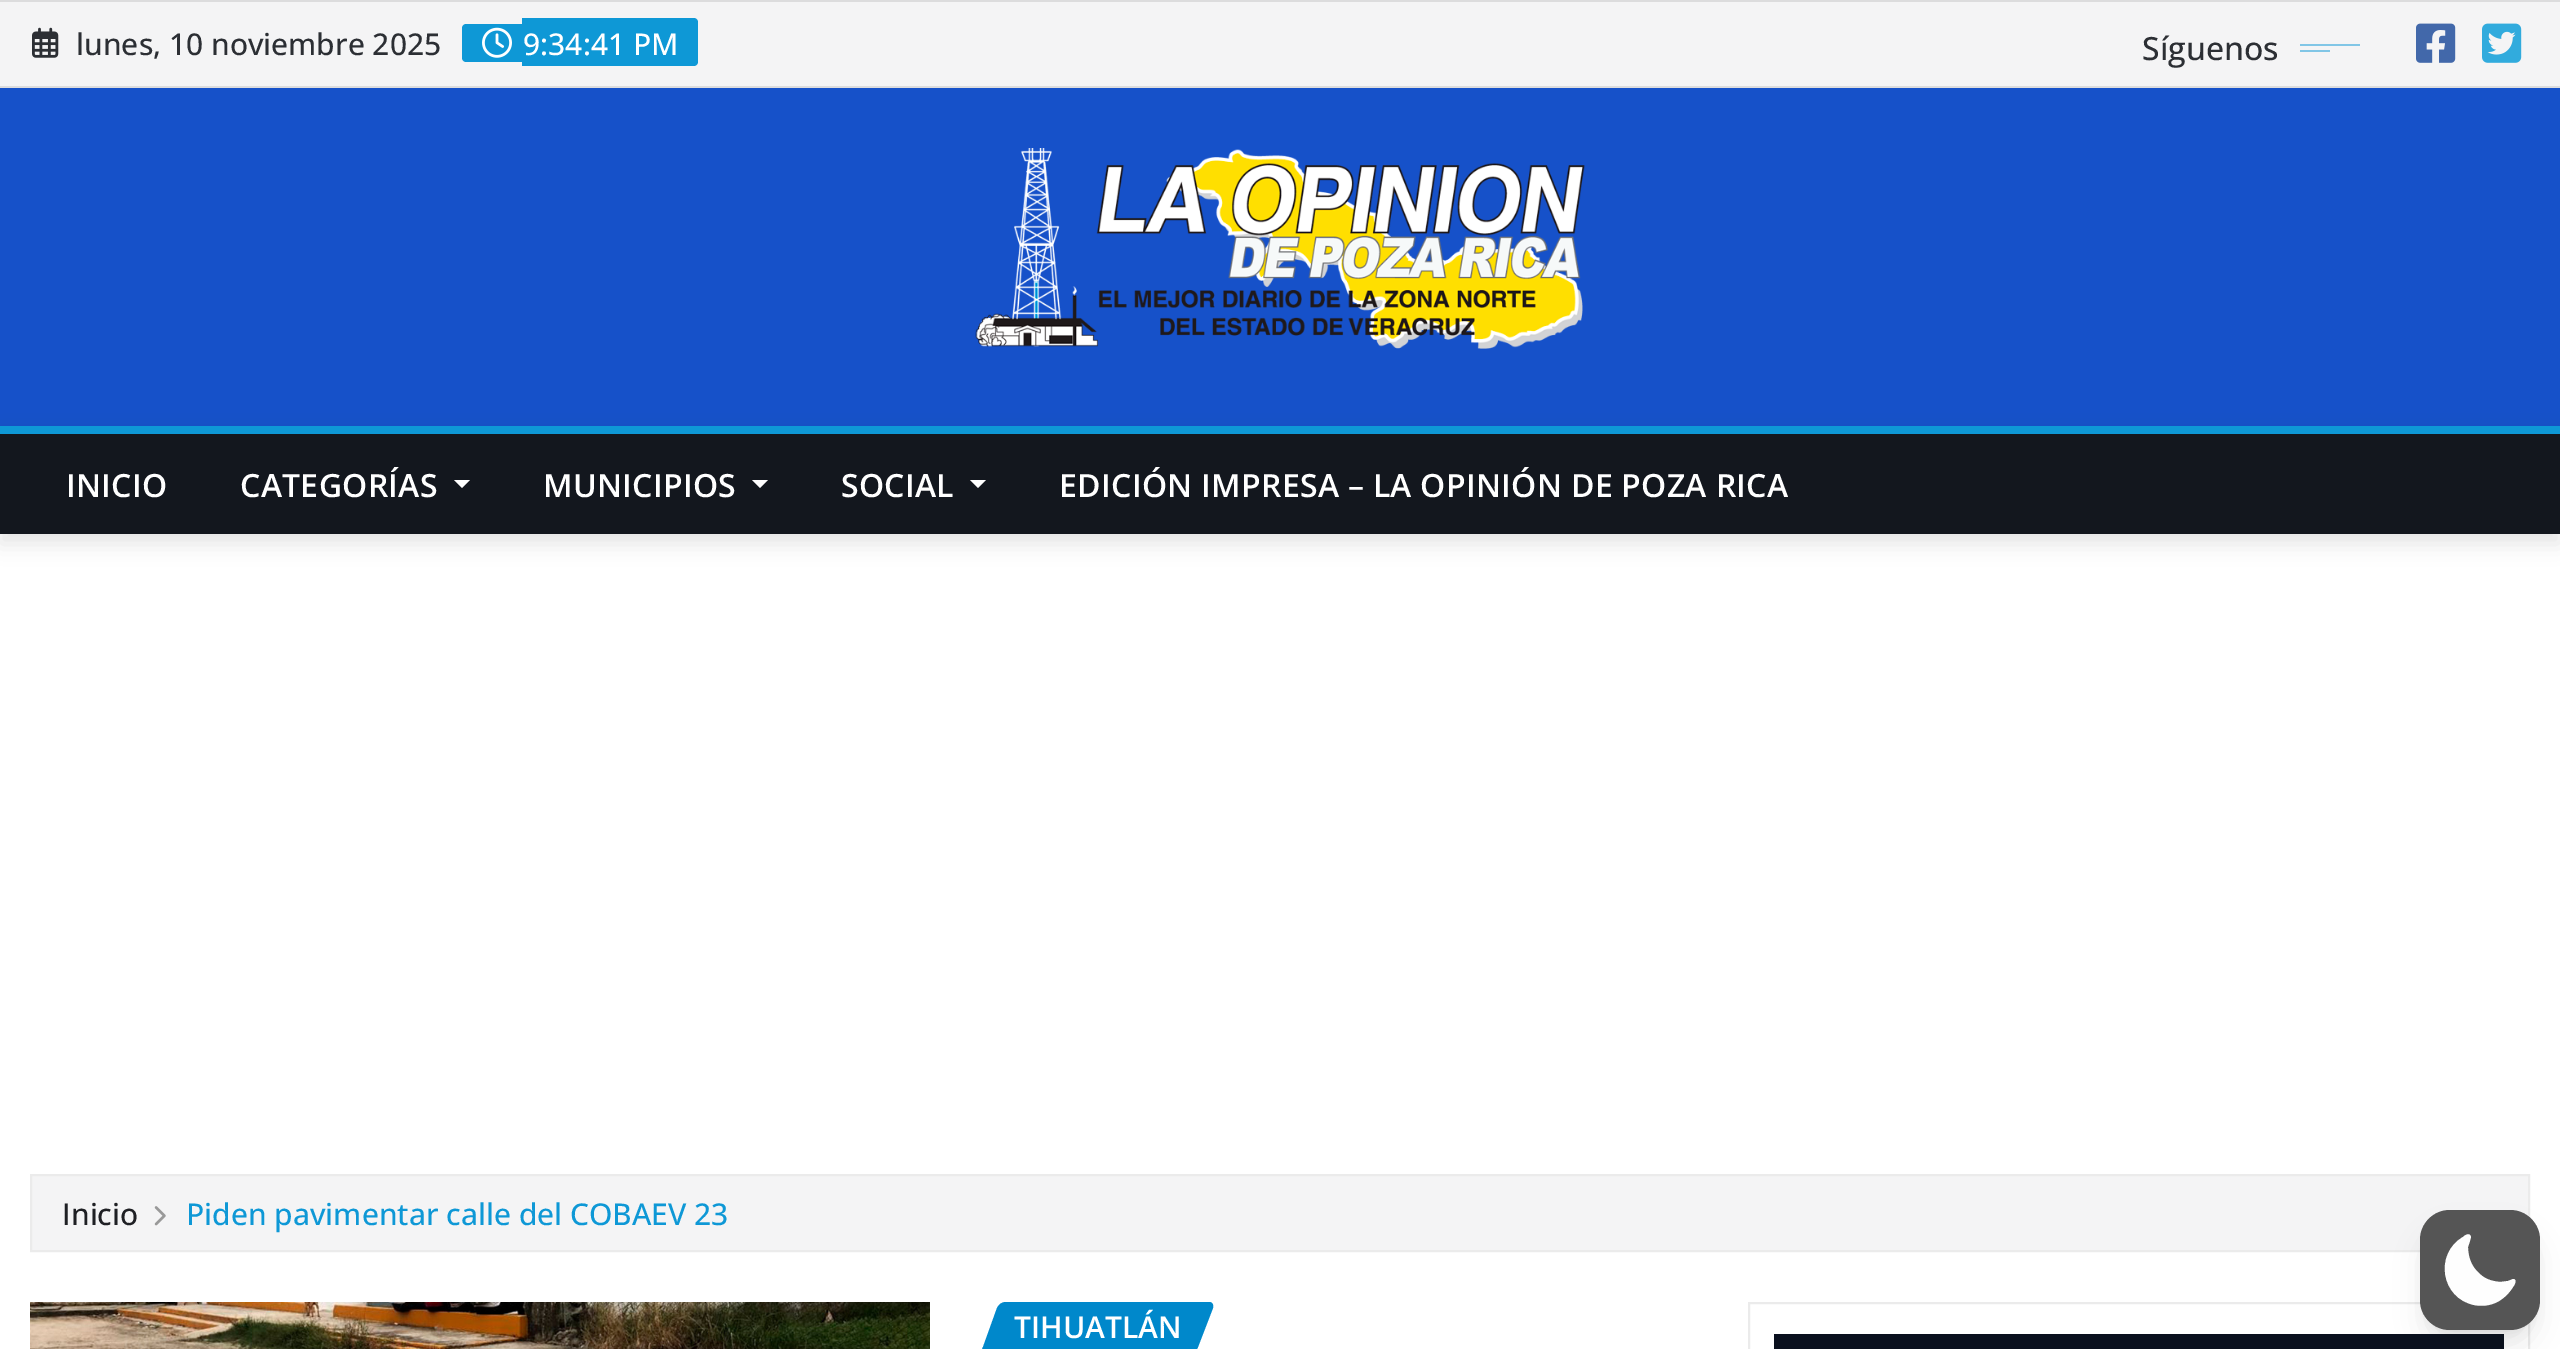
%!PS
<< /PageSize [2560 1349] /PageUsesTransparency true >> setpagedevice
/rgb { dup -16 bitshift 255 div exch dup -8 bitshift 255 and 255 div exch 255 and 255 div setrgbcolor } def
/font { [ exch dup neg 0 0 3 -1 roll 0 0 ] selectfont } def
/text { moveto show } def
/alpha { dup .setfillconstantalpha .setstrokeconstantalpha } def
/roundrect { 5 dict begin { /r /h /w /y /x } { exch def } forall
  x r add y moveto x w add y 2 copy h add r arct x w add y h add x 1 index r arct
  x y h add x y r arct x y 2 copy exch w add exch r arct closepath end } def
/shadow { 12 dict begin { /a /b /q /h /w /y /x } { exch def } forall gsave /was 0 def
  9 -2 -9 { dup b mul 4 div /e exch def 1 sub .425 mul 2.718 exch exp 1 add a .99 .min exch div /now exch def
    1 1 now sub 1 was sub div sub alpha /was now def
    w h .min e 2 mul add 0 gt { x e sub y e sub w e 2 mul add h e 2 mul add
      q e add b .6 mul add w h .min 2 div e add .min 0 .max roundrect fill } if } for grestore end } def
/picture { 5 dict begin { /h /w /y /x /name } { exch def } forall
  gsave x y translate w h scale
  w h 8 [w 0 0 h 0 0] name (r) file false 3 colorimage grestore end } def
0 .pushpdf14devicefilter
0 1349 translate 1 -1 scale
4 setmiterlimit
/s1 { /OpenSans-Medium 30 font 16#2C2F34 rgb } def
/s2 { /OpenSans-Medium 30 font 16#FFFFFF rgb } def
/s3 { /OpenSans-Medium 32 font 16#2C2F34 rgb } def
/s4 { /OpenSans-Medium 30 font 16#1F2024 rgb } def
/s5 { /OpenSans-Medium 30 font 16#0E98D6 rgb } def
/s6 { /OpenSans-SemiBold 30 font 16#FFFFFF rgb } def
16#FFFFFF rgb
0 0 2560 1349 rectfill
16#F4F4F5 rgb
0 2 2560 84 rectfill
16#DCDCDD rgb
0 0 2560 2 rectfill
0 86 2560 2 rectfill
(pic1.raw) 32 27 27 31 picture
s1
(lunes, 10 noviembre 2025) 76 55 text
16#0E98D6 rgb
466 24 moveto 522 24 lineto 522 62 lineto 466 62 lineto 464 62 462 60 462 58 curveto 462 28 lineto 462 26 464 24 466 24 curveto closepath fill
(pic2.raw) 482 27 30 31 picture
522 18 moveto 694 18 lineto 696 18 698 20 698 22 curveto 698 62 lineto 698 64 696 66 694 66 curveto 522 66 lineto closepath fill
s2
(9:34:41 PM) 523 55 text
s3
(Síguenos) 2142 60 text
16#81C6E6 rgb
2300 44 60 2 rectfill
2300 50 30 2 rectfill
(pic3.raw) 2416 23 40 40 picture
(pic4.raw) 2482 23 40 40 picture
16#1651C9 rgb
0 88 2560 338 rectfill
(pic5.raw) 975 148 610 201 picture
16#000000 rgb
0 436 2560 108 0 10 0.1 shadow
16#13171E rgb
0 434 2560 100 rectfill
16#0E98D6 rgb
0 426 2560 8 rectfill
/OpenSans-SemiBold 32 font
16#FFFFFF rgb
66 497 moveto 0.3 0 (INICIO) ashow
240 497 moveto 0.3 0 (CATEGORÍAS) ashow
454 480 moveto 470 480 lineto 462 488 lineto closepath fill
543 497 moveto 0.3 0 (MUNICIPIOS) ashow
752 480 moveto 768 480 lineto 760 488 lineto closepath fill
841 497 moveto 0.3 0 (SOCIAL) ashow
970 480 moveto 986 480 lineto 978 488 lineto closepath fill
1059 497 moveto 0.3 0 (EDICIÓN IMPRESA – LA OPINIÓN DE POZA RICA) ashow
16#F4F4F5 rgb
31 1175 moveto 2529 1175 lineto 2529 1251 lineto 31 1251 lineto closepath gsave fill grestore
16#EBEBEB rgb
2 setlinewidth
stroke
s4
(Inicio) 62 1225 text
(pic6.raw) 154 1206 12 20 picture
s5
(Piden pavimentar calle del COBAEV 23) 186 1225 text
16#EBEBEB rgb
1749 1303 780 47 rectstroke
16#0A101E rgb
1774 1334 730 15 rectfill
16#000000 rgb
2428 1226 104 104 22 6 0.1 shadow
2426 1236 108 108 24 15 0.1 shadow
16#555555 rgb
2420 1210 120 120 30 roundrect fill
16#FEFEFE rgb
2470 1235 moveto 2472 1237 2470 1239 2470 1241 curveto 2468 1247 lineto 2468 1256 2471 1266 2478 1272 curveto 2484 1279 2491 1281 2500 1282 curveto 2508 1281 lineto 2513 1279 lineto 2518 1279 2514 1286 2513 1287 curveto 2510 1292 2506 1296 2502 1299 curveto 2494 1305 2484 1307 2474 1305 curveto 2441 1298 2434 1254 2463 1237 curveto 2464 1236 2468 1233 2470 1235 curveto closepath eofill
(pic7.raw) 30 1302 900 47 picture
16#0088CB rgb
1006 1302 moveto 1209 1302 lineto 1212 1302 1214 1304 1213 1308 curveto 1198 1347 lineto 1197 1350 1193 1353 1190 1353 curveto 986 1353 lineto 983 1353 981 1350 983 1347 curveto 997 1308 lineto 999 1304 1002 1302 1006 1302 curveto closepath fill
s6
(TIHUATLÁN) 1014 1338 text
.poppdf14devicefilter showpage
